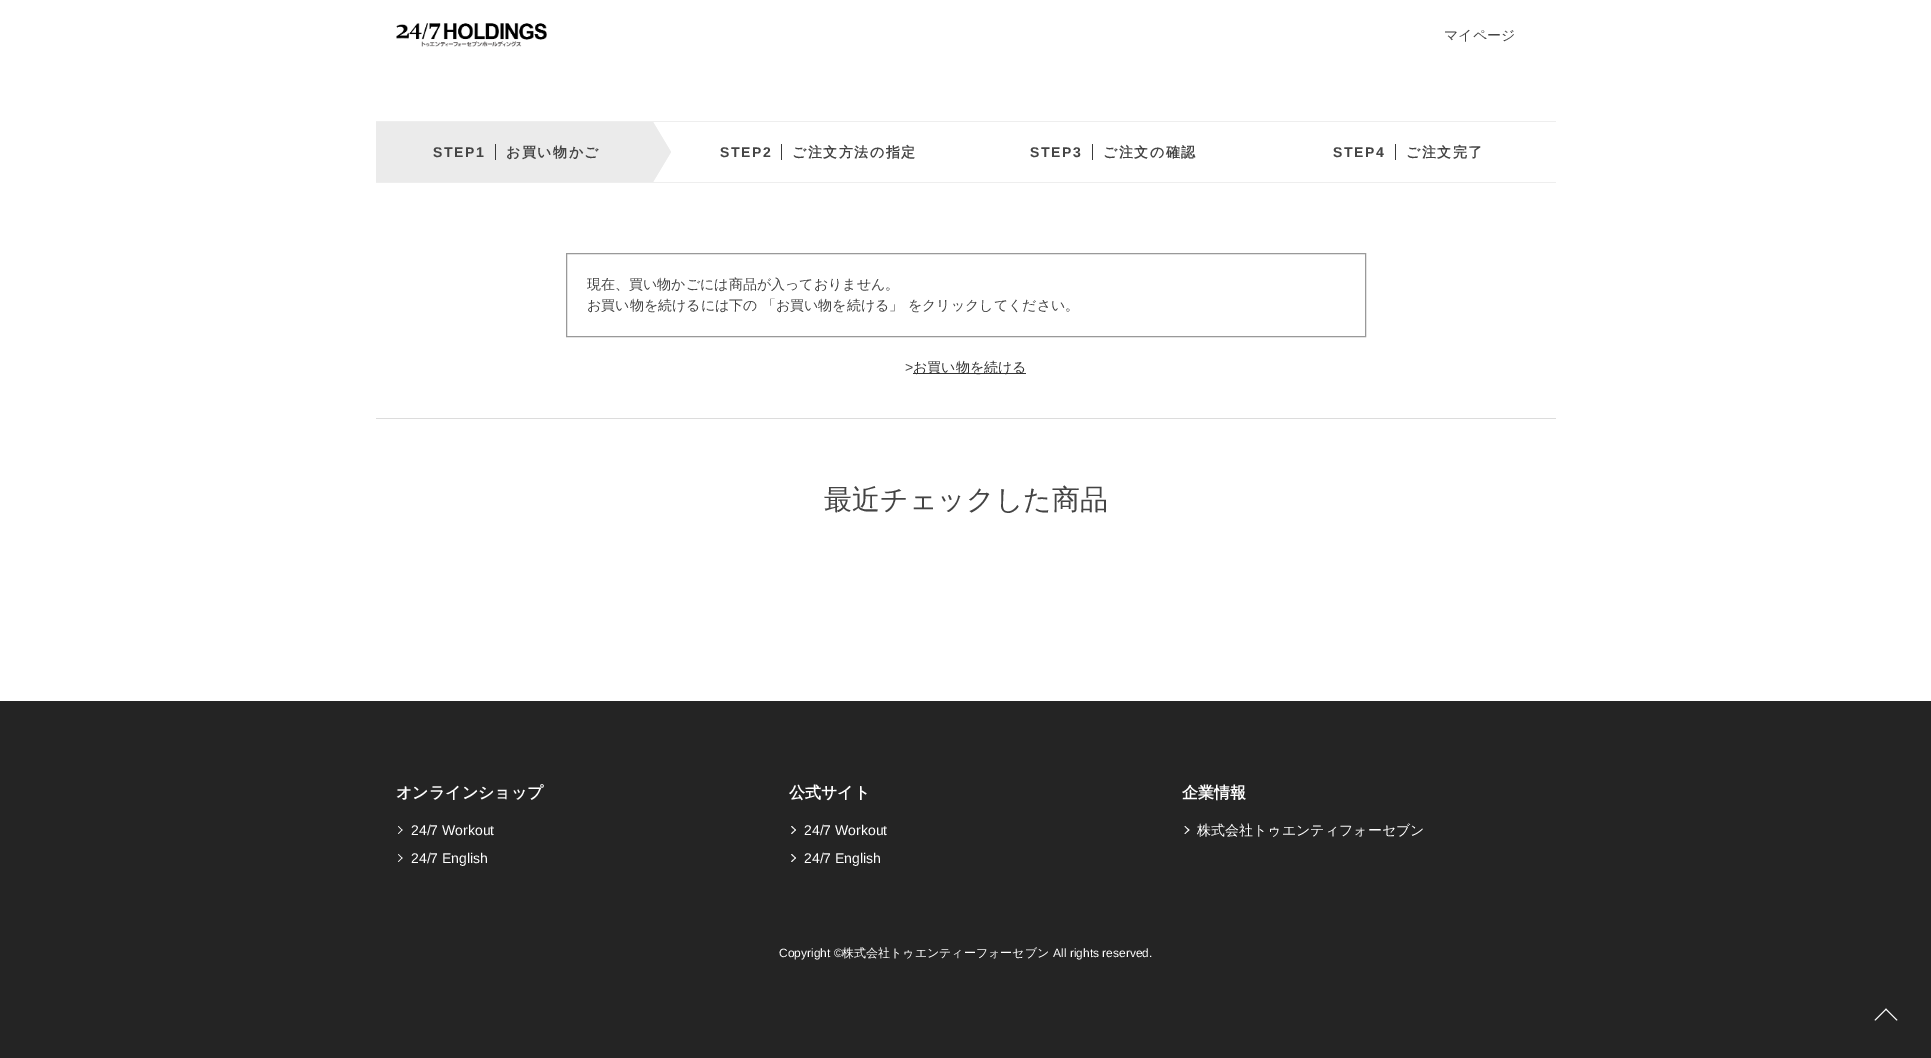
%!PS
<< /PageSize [1931 1058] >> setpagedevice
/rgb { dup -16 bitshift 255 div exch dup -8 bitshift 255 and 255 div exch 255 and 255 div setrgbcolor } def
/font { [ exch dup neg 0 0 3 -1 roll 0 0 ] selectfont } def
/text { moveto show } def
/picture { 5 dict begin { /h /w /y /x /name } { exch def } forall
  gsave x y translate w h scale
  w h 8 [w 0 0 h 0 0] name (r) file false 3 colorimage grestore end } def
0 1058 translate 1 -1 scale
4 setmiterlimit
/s1 { /WenQuanYiZenHei-Medium 14 font 16#444444 rgb } def
/s2 { /LiberationSans-Regular 14 font 16#444444 rgb } def
/s3 { /WenQuanYiZenHei-Medium 14 font 16#333333 rgb } def
/s4 { /WenQuanYiZenHei-Medium 28 font 16#444444 rgb } def
/s5 { /WenQuanYiZenHei-Bold 16 font 16#FFFFFF rgb } def
/s6 { /LiberationSans-Regular 14 font 16#FFFFFF rgb } def
/s7 { /WenQuanYiZenHei-Medium 14 font 16#FFFFFF rgb } def
/s8 { /LiberationSans-Regular 12 font 16#FFFFFF rgb } def
/s9 { /WenQuanYiZenHei-Medium 12 font 16#FFFFFF rgb } def
16#FFFFFF rgb
0 0 1931 1058 rectfill
(pic1.raw) 396 23 151 24 picture
s1
(マイページ) 1444 40 text
16#EEEEEE rgb
376 121 1180 1 rectfill
376 182 1180 1 rectfill
16#EBEBEB rgb
376 122 295 60 rectfill
/LiberationSans-Bold 14 font
16#444444 rgb
433 157 moveto 1.5 0 (STEP1) ashow
16#3A3A3A rgb
495 144 1 16 rectfill
/WenQuanYiZenHei-Bold 14 font
16#444444 rgb
506 157 moveto 1.5 0 (お買い物かご) ashow
16#FFFFFF rgb
653 122 moveto 671 122 lineto 671 152 lineto closepath 671 182 moveto 653 182 lineto 671 152 lineto closepath fill
16#EBEBEB rgb
653 182 moveto 653 122 lineto 671 152 lineto closepath fill
/LiberationSans-Bold 14 font
16#444444 rgb
720 157 moveto 1.5 0 (STEP2) ashow
16#3A3A3A rgb
781 144 1 16 rectfill
/WenQuanYiZenHei-Bold 14 font
16#444444 rgb
792 157 moveto 1.5 0 (ご注文方法の指定) ashow
/LiberationSans-Bold 14 font
1030 157 moveto 1.5 0 (STEP3) ashow
16#3A3A3A rgb
1092 144 1 16 rectfill
/WenQuanYiZenHei-Bold 14 font
16#444444 rgb
1103 157 moveto 1.5 0 (ご注文の確認) ashow
/LiberationSans-Bold 14 font
1333 157 moveto 1.5 0 (STEP4) ashow
16#3A3A3A rgb
1395 144 1 16 rectfill
/WenQuanYiZenHei-Bold 14 font
16#444444 rgb
1406 157 moveto 1.5 0 (ご注文完了) ashow
16#999999 rgb
566.5 253.5 799 83 rectstroke
s1
(現在、買い物かごには商品が入っておりません。) 587 289 text
(お買い物を続けるには下の 「お買い物を続ける」 をクリックしてください。) 587 310 text
s2
(>) 905 372 text
16#333333 rgb
913 373 113 1 rectfill
s3
(お買い物を続ける) 913 372 text
16#DCDCDC rgb
376 418 1180 1 rectfill
s4
(最近チェックした商品) 824 509 text
16#242424 rgb
0 701 1931 357 rectfill
s5
(オンラインショップ) 396 798 text
398.5 826 moveto 402.5 830 lineto 402 830.5 lineto 398 826.5 lineto closepath fill
402 829.5 moveto 402.5 830 lineto 398.5 834 lineto 398 833.5 lineto closepath fill
s6
(24/7 Workout) 411 835 text
398.5 854 moveto 402.5 858 lineto 402 858.5 lineto 398 854.5 lineto closepath fill
402 857.5 moveto 402.5 858 lineto 398.5 862 lineto 398 861.5 lineto closepath fill
(24/7 English) 411 863 text
s5
(公式サイト) 789 798 text
792 826 moveto 796 830 lineto 795.5 830.5 lineto 791 826.5 lineto closepath fill
795.5 829.5 moveto 796 830 lineto 792 834 lineto 791 833.5 lineto closepath fill
s6
(24/7 Workout) 804 835 text
792 854 moveto 796 858 lineto 795.5 858.5 lineto 791 854.5 lineto closepath fill
795.5 857.5 moveto 796 858 lineto 792 862 lineto 791 861.5 lineto closepath fill
(24/7 English) 804 863 text
s5
(企業情報) 1182 798 text
1185 826 moveto 1189.5 830 lineto 1188.5 830.5 lineto 1184.5 826.5 lineto closepath fill
1188.5 829.5 moveto 1189.5 830 lineto 1185 834 lineto 1184.5 833.5 lineto closepath fill
s7
(株式会社トゥエンティフォーセブン) 1197 835 text
s8
(Copyright ©) 779 957 text
s9
(株式会社トゥエンティーフォーセブン) 842 957 text
s8
(All rights reserved.) 1053 957 text
1886 1008.5 moveto 1897.5 1020 lineto 1896.5 1020.5 lineto 1885.5 1009.5 lineto closepath fill
1886 1008.5 moveto 1886.5 1009.5 lineto 1875.5 1020.5 lineto 1874.5 1020 lineto closepath fill
showpage
